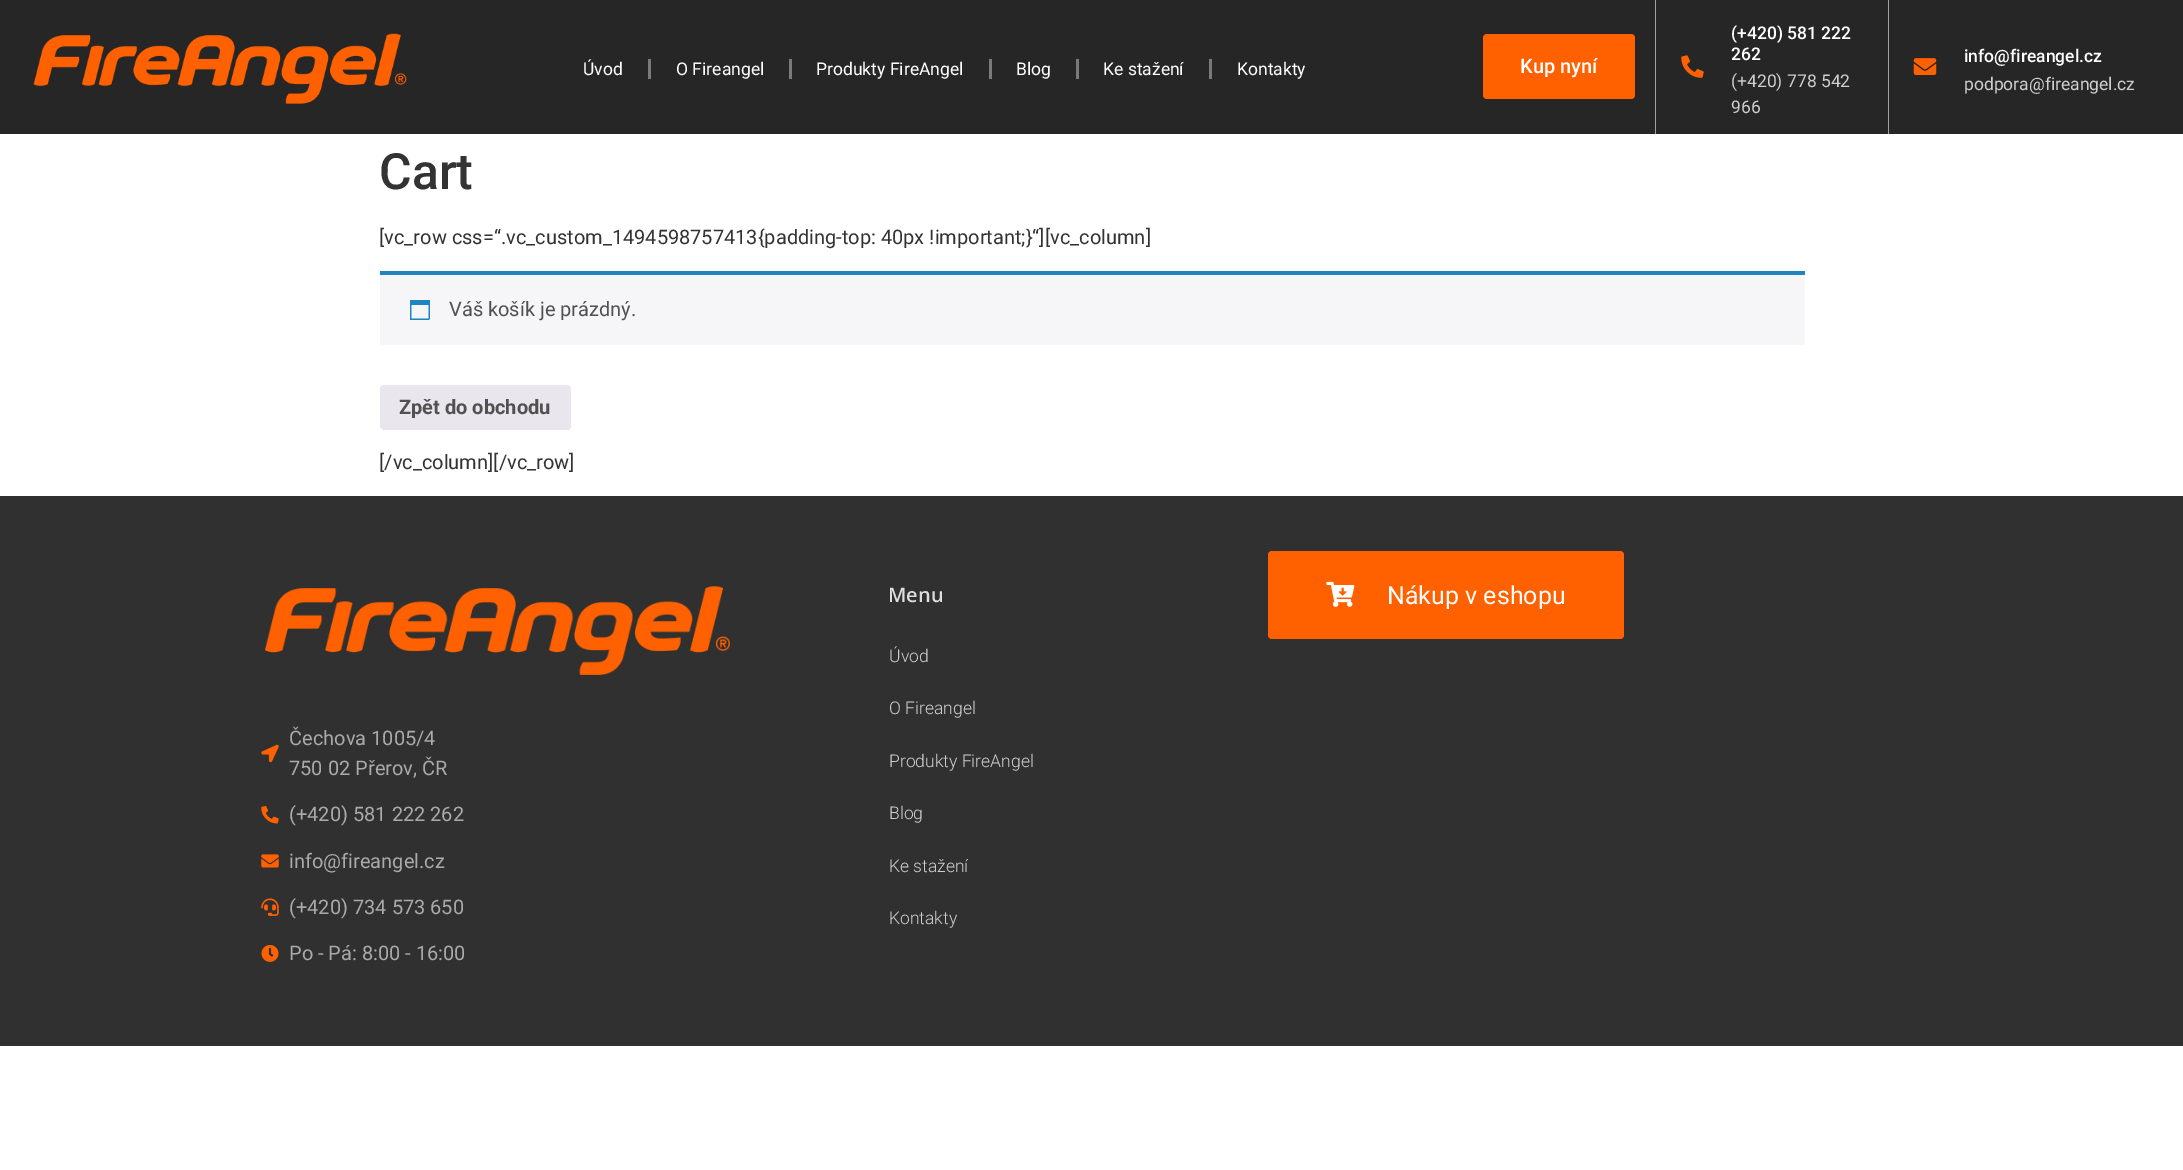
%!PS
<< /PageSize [2183 1170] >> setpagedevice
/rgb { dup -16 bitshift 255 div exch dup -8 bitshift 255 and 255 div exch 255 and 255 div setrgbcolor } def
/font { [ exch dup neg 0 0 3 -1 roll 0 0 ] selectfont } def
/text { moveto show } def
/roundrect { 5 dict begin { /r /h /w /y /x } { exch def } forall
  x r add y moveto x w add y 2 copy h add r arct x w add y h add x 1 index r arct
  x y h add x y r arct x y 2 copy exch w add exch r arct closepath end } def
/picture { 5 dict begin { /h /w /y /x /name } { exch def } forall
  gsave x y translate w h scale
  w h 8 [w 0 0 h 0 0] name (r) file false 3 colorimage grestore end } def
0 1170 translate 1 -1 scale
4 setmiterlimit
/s1 { /Roboto-Regular 17.5 font 16#FFFFFF rgb } def
/s2 { /Roboto-Medium 20 font 16#FFFFFF rgb } def
/s3 { /Roboto-Medium 17.5 font 16#FFFFFF rgb } def
/s4 { /Roboto-Regular 17.5 font 16#CECECE rgb } def
/s5 { /Roboto-Medium 50 font 16#333333 rgb } def
/s6 { /Roboto-Regular 20 font 16#333333 rgb } def
/s7 { /Roboto-Regular 20 font 16#515151 rgb } def
/s8 { /Roboto-Bold 20 font 16#515151 rgb } def
/s9 { /Roboto-Regular 20 font 16#AAAAAA rgb } def
/s10 { /OpenSans-SemiBold 20 font 16#DDDDDD rgb } def
/s11 { /Roboto-Light 17.5 font 16#CECECE rgb } def
/s12 { /Roboto-Regular 25 font 16#FFFFFF rgb } def
16#FFFFFF rgb
0 0 2183 1170 rectfill
16#262626 rgb
0 0 2183 134 rectfill
(pic1.raw) 33 33 374 71 picture
s1
(Úvod) 583 75 text
16#7A7A7A rgb
648 59 3 20 rectfill
s1
(O Fireangel) 676 75 text
16#7A7A7A rgb
789 59 3 20 rectfill
s1
(Produkty FireAngel) 816 75 text
16#7A7A7A rgb
989 59 3 20 rectfill
s1
(Blog) 1016 75 text
16#7A7A7A rgb
1076 59 3 20 rectfill
s1
(Ke stažení) 1103 75 text
16#7A7A7A rgb
1209 59 3 20 rectfill
s1
(Kontakty) 1237 75 text
16#A2A2A2 rgb
1655 0 1 134 rectfill
16#FF6000 rgb
1483 34 152 65 4 roundrect fill
s2
(Kup nyní) 1520 73 text
16#A2A2A2 rgb
1888 0 1 134 rectfill
(pic2.raw) 1681 55 23 23 picture
s3
(\(+420\) 581 222) 1731 39 text
(262) 1731 60 text
s4
(\(+420\) 778 542) 1731 87 text
(966) 1731 113 text
(pic3.raw) 1913 58 24 17 picture
s3
(info@fireangel.cz) 1964 62 text
s4
(podpora@fireangel.cz) 1964 90 text
s5
(Cart) 379 189 text
s6
([vc_row css=“.vc_custom_1494598757413{padding-top: 40px !important;}“][vc_column]) 379 244 text
16#F6F5F8 rgb
380 275 1425 70 rectfill
16#1E85BE rgb
380 271 1425 4 rectfill
(pic4.raw) 410 300 20 20 picture
s7
(Váš košík je prázdný.) 449 316 text
16#E9E6ED rgb
380 385 191 45 4 roundrect fill
s8
(Zpět do obchodu) 399 414 text
s6
([/vc_column][/vc_row]) 379 469 text
16#303030 rgb
0 496 2183 550 rectfill
(pic5.raw) 265 586 465 89 picture
(pic6.raw) 261 744 18 19 picture
s9
(Čechova 1005/4) 289 745 text
(750 02 Přerov, ČR) 289 775 text
(pic7.raw) 261 806 18 18 picture
(\(+420\) 581 222 262) 289 821 text
(pic8.raw) 261 854 18 14 picture
(info@fireangel.cz) 289 868 text
(pic9.raw) 261 898 18 18 picture
(\(+420\) 734 573 650) 289 914 text
(pic10.raw) 261 945 18 17 picture
(Po - Pá: 8:00 - 16:00) 289 960 text
s10
(Menu) 888 602 text
s11
(Úvod) 889 662 text
(O Fireangel) 889 714 text
(Produkty FireAngel) 889 767 text
(Blog) 889 819 text
(Ke stažení) 889 872 text
(Kontakty) 889 924 text
16#FF6000 rgb
1268 551 356 88 4 roundrect fill
(pic11.raw) 1326 581 29 26 picture
s12
(Nákup v eshopu) 1387 604 text
showpage
